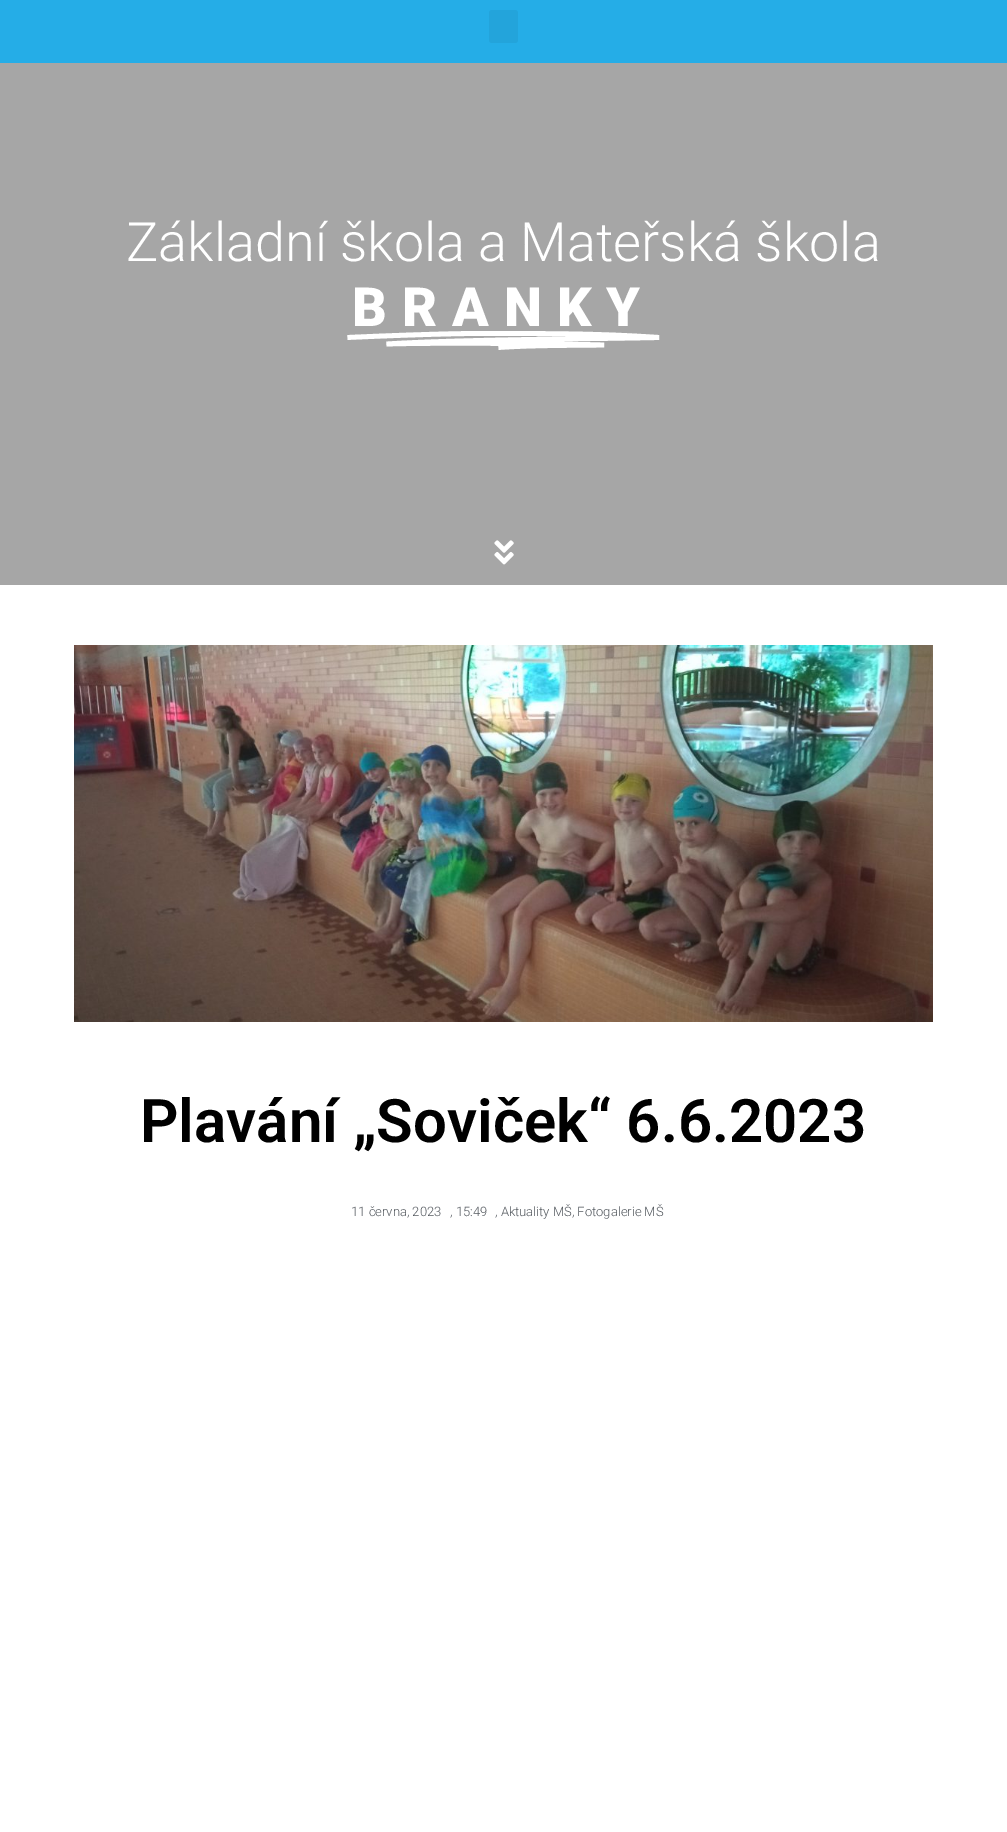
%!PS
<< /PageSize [1007 1832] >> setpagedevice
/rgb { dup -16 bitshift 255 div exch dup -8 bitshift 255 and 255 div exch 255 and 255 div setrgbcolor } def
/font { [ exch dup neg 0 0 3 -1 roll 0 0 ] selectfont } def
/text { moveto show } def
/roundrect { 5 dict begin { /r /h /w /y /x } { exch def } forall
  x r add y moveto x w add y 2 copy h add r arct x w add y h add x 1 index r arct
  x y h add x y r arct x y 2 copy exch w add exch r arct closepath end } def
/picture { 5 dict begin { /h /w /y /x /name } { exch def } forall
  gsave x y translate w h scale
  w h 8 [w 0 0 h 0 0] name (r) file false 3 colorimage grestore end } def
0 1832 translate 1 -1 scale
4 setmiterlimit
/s1 { /Roboto-Light 54 font 16#FFFFFF rgb } def
/s2 { /Roboto-SemiBold 60 font 16#000000 rgb } def
/s3 { /Roboto-Light 13 font 16#54595F rgb } def
16#FFFFFF rgb
0 0 1007 1832 rectfill
16#25ADE7 rgb
0 0 1007 63 rectfill
16#23A4DB rgb
489 10 29 33 3 roundrect fill
16#A6A6A6 rgb
0 63 1007 522 rectfill
s1
(Základní škola a Mateřská škola) 126 261 text
/Roboto-Black 54 font
352 326 moveto 15 0 (BRANKY) ashow
4.8 setlinewidth
347.5 337.5 moveto 379.5 336 445 333.5 476.5 333.5 curveto 555.5 333.5 599.5 333.5 659 337.5 curveto 587 339 458.5 339.5 386.5 344 curveto 440 342.5 551 343.5 604 345 curveto 574 345.5 533.5 345 498.5 347.5 curveto stroke
(pic1.raw) 494 540 20 25 picture
(pic2.raw) 74 645 859 377 picture
s2
(Plavání „Soviček“ 6.6.2023) 140 1142 text
s3
(11 června, 2023) 351 1216 text
(, 15:49) 450 1216 text
(, Aktuality MŠ, Fotogalerie MŠ) 495 1216 text
showpage
